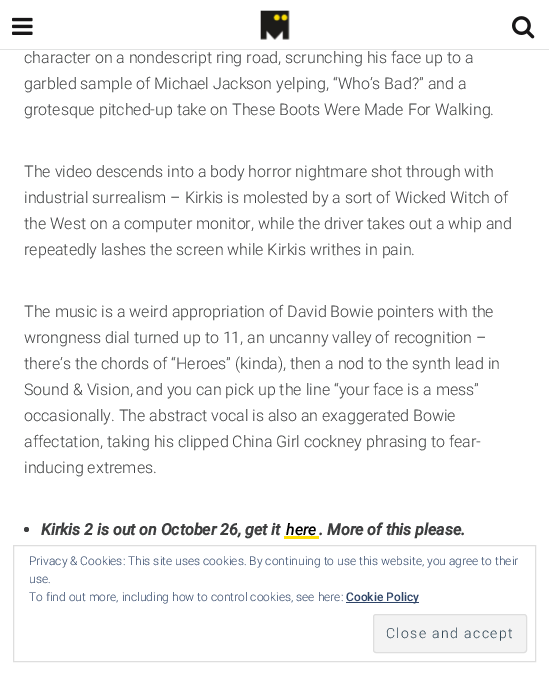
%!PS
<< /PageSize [549 675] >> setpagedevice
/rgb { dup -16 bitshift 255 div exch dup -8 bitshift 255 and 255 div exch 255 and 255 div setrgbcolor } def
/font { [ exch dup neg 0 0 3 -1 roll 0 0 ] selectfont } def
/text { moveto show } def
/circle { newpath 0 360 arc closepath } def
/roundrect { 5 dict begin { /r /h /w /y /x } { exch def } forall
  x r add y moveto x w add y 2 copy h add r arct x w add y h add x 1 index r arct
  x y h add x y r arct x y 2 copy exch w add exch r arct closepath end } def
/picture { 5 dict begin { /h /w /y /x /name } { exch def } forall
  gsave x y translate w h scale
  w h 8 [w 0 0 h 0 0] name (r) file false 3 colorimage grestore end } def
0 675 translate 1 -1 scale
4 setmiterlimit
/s1 { /Roboto-Light 16 font 16#3E3F40 rgb } def
/s2 { /Roboto-BoldItalic 16 font 16#3E3F40 rgb } def
/s3 { /Roboto-MediumItalic 16 font 16#000000 rgb } def
/s4 { /Roboto-Light 12 font 16#2E4467 rgb } def
/s5 { /Roboto-Medium 12 font 16#2E4467 rgb } def
16#FFFFFF rgb
0 0 549 675 rectfill
16#E2E3E3 rgb
0 49 549 1 rectfill
(pic1.raw) 12 17 21 18 picture
(pic2.raw) 260 10 30 30 picture
(pic3.raw) 512 16 23 23 picture
s1
(character on a nondescript ring road, scrunching his face up to a) 24 63 text
(garbled sample of Michael Jackson yelping, “Who’s Bad?” and a) 24 89 text
(grotesque pitched-up take on These Boots Were Made For Walking.) 24 115 text
(The video descends into a body horror nightmare shot through with) 24 177 text
(industrial surrealism – Kirkis is molested by a sort of Wicked Witch of) 24 203 text
(the West on a computer monitor, while the driver takes out a whip and) 24 229 text
(repeatedly lashes the screen while Kirkis writhes in pain.) 24 255 text
(The music is a weird appropriation of David Bowie pointers with the) 24 317 text
(wrongness dial turned up to 11, an uncanny valley of recognition –) 24 343 text
(there’s the chords of “Heroes” \(kinda\), then a nod to the synth lead in) 24 369 text
(Sound & Vision, and you can pick up the line “your face is a mess”) 24 395 text
(occasionally. The abstract vocal is also an exaggerated Bowie) 24 421 text
(affectation, taking his clipped China Girl cockney phrasing to fear-) 24 447 text
(inducing extremes.) 24 473 text
26.5 529.5 2.5 circle fill
s2
(Kirkis 2 is out on October 26, get it) 41 535 text
s3
(here) 286 535 text
s2
(. More of this please.) 319 535 text
16#FFDE00 rgb
284 536 35 3 rectfill
16#DEDEDE rgb
13.5 545.5 522 116 rectstroke
s4
(Privacy & Cookies: This site uses cookies. By continuing to use this website, you agree to their) 29 565 text
(use.) 29 583 text
(To find out more, including how to control cookies, see here:) 29 601 text
346 602 73 1 rectfill
s5
(Cookie Policy) 346 601 text
16#F3F3F3 rgb
373.5 614.5 153 38 2.5 roundrect gsave fill grestore
16#DEDEDE rgb
stroke
/Roboto-Light 14 font
16#2E4453 rgb
386 638 moveto 1.4 0 (Close and accept) ashow
showpage
